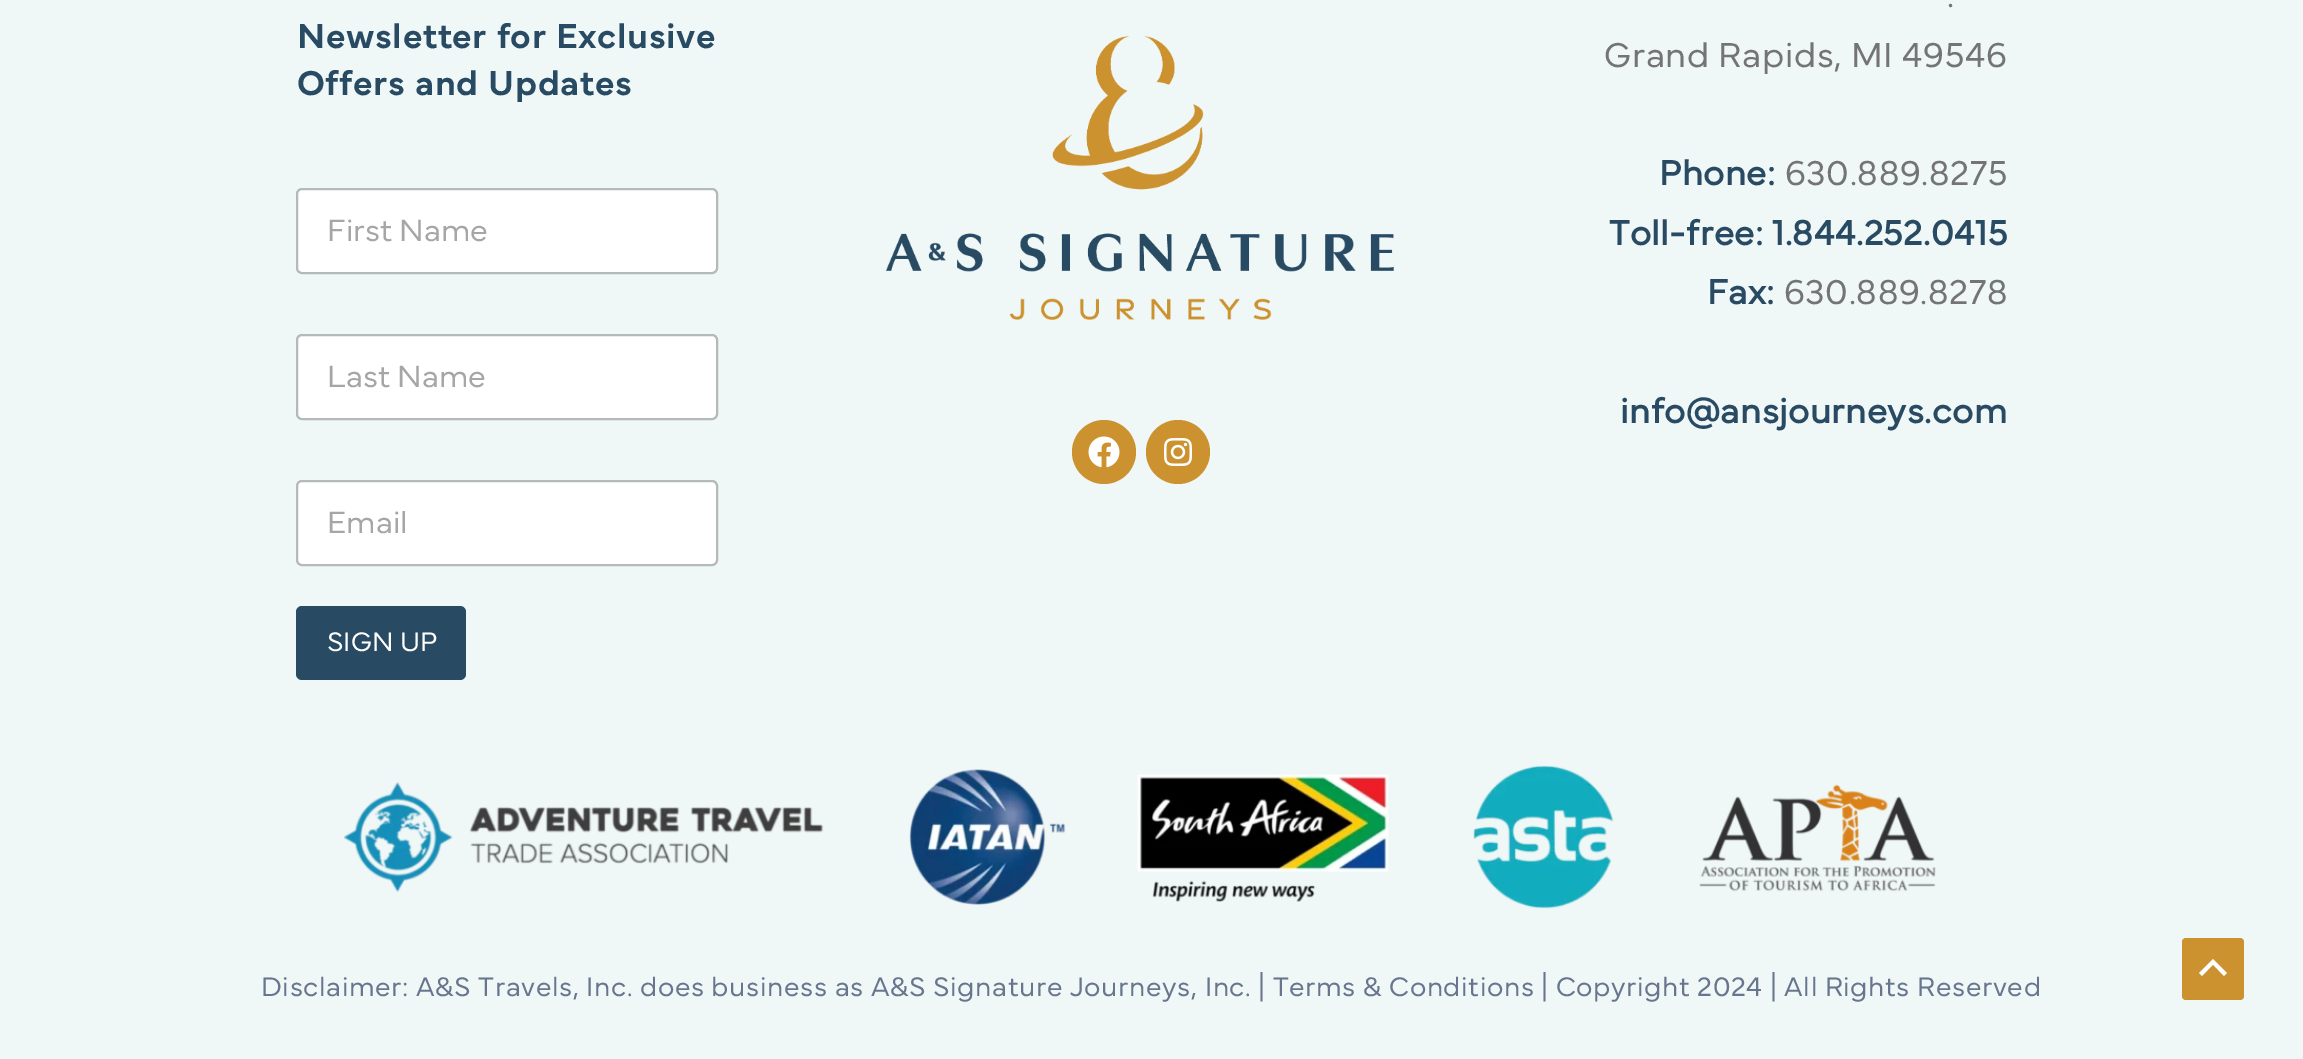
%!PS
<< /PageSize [2303 1059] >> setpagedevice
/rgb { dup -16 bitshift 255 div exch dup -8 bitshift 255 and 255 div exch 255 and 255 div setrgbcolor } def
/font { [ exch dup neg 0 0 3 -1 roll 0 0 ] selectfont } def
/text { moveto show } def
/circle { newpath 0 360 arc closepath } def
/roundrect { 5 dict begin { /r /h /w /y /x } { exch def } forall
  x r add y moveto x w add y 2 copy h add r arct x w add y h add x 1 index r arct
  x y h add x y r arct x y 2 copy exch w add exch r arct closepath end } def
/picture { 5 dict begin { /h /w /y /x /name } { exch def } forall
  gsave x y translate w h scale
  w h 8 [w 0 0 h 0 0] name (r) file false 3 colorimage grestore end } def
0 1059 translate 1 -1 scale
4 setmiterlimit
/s1 { /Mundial-Light 32 font 16#A6A6A6 rgb } def
/s2 { /Mundial-Light 28 font 16#FFFFFF rgb } def
16#F0F7F7 rgb
0 0 2303 1059 rectfill
/Mundial-SemiBold 36 font
16#284B63 rgb
297 48 moveto 0.6 0 (Newsletter for Exclusive) ashow
297 95 moveto 0.6 0 (Offers and Updates) ashow
16#FFFFFF rgb
297 189 420 84 5 roundrect gsave fill grestore
16#B4B9B9 rgb
2 setlinewidth
stroke
s1
(First Name) 327 241 text
16#FFFFFF rgb
297 335 420 84 5 roundrect gsave fill grestore
16#B4B9B9 rgb
stroke
s1
(Last Name) 327 387 text
16#FFFFFF rgb
297 481 420 84 5 roundrect gsave fill grestore
16#B4B9B9 rgb
stroke
s1
(Email) 327 533 text
16#284B63 rgb
296 606 170 74 6 roundrect fill
s2
(SIGN UP) 327 651 text
(pic1.raw) 886 36 508 284 picture
16#CC922F rgb
1104 452 32 circle fill
(pic2.raw) 1088 436 32 32 picture
1178 452 32 circle fill
(pic3.raw) 1164 438 28 28 picture
/Mundial-Light 36 font
16#747474 rgb
1947 7 moveto 0.6 0 (.) ashow
1604 67 moveto 0.6 0 (Grand Rapids, MI 49546) ashow
/Mundial-Bold 36 font
16#284B63 rgb
1659 185 moveto 0.6 0 (Phone:) ashow
/Mundial-Light 36 font
16#747474 rgb
1785 185 moveto 0.6 0 (630.889.8275) ashow
/Mundial-Bold 36 font
16#284B63 rgb
1609 245 moveto 0.6 0 (Toll-free: 1.844.252.0415) ashow
1707 304 moveto 0.6 0 (Fax:) ashow
/Mundial-Light 36 font
16#747474 rgb
1784 304 moveto 0.6 0 (630.889.8278) ashow
/Mundial-Bold 36 font
16#284B63 rgb
1620 423 moveto 0.6 0 (info@ansjourneys.com) ashow
(pic4.raw) 344 765 1592 144 picture
/Mundial-Light 28 font
16#67768E rgb
261 996 moveto 0.6 0 (Disclaimer: A&S Travels, Inc. does business as A&S Signature Journeys, Inc. | Terms & Conditions | Copyright 2024 | All Rights Reserved) ashow
16#CC922F rgb
2182 938 62 62 4 roundrect fill
16#FFFFFF rgb
2227 973 moveto 2213 959 lineto 2199 973 lineto 2202 976 lineto 2213 964.5 lineto 2224 976 lineto closepath fill
showpage
